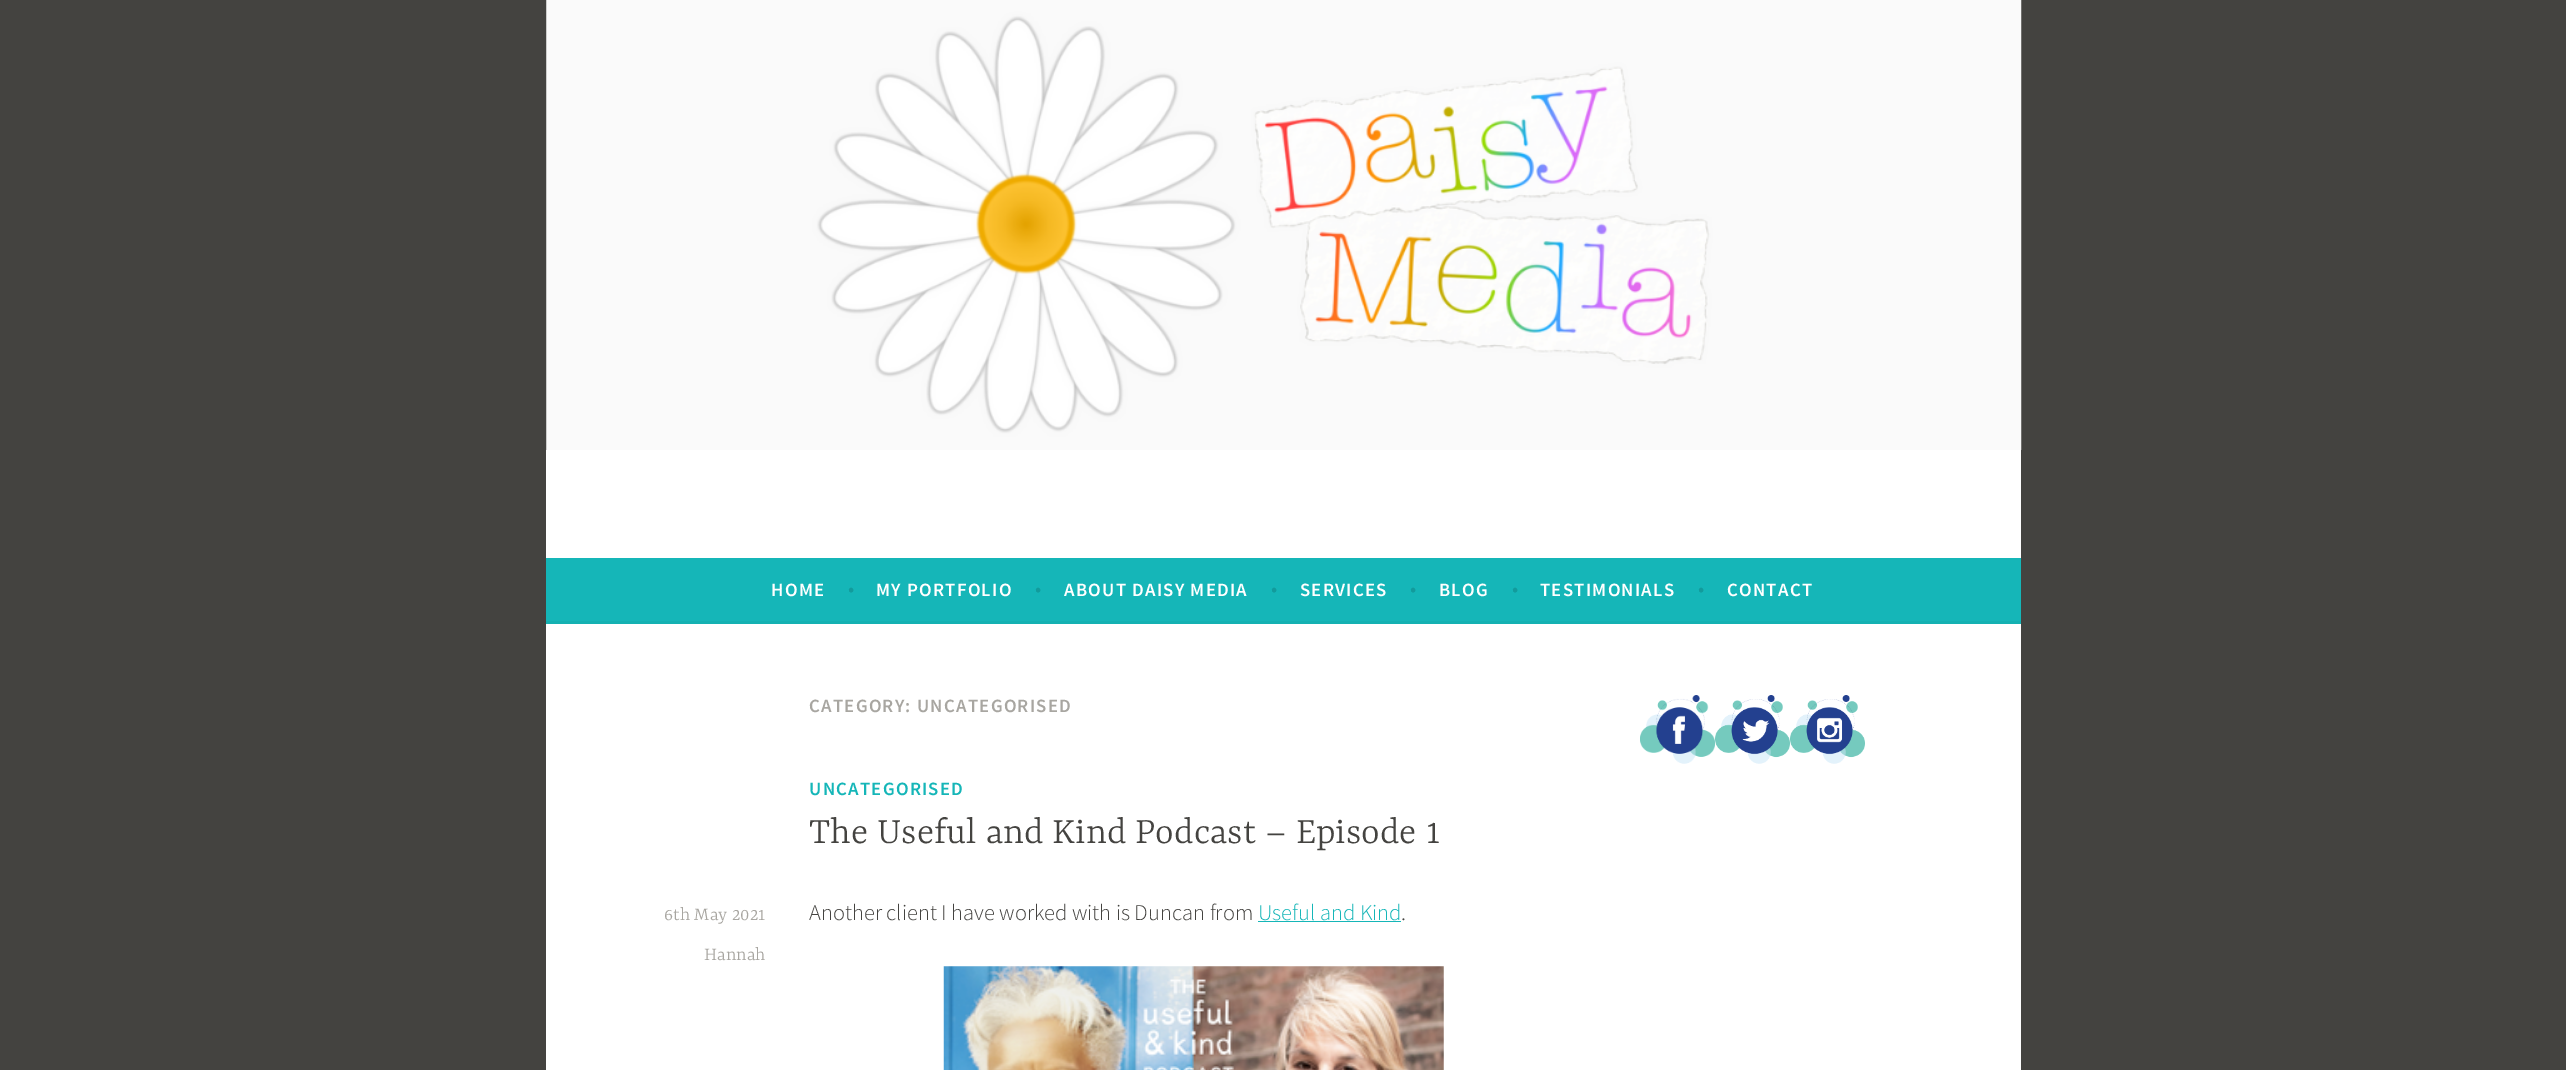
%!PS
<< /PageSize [2566 1070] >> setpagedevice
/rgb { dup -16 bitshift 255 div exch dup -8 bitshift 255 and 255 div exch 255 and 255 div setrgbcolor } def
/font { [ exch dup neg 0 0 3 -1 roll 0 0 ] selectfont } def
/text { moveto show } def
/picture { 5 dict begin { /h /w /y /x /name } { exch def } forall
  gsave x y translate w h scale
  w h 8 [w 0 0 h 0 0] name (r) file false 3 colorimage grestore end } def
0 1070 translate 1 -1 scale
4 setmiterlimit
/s1 { /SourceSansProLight-Light 22.5 font 16#129B9C rgb } def
/s2 { /Yrsa-Light 40 font 16#444340 rgb } def
/s3 { /Yrsa-Light 20 font 16#A8A6A1 rgb } def
/s4 { /SourceSansProLight-Light 22.5 font 16#444340 rgb } def
/s5 { /SourceSansProLight-Light 22.5 font 16#15B6B8 rgb } def
16#444340 rgb
0 0 2566 1070 rectfill
(pic1.raw) 546 0 1476 450 picture
16#FFFFFF rgb
546 450 1475 108 rectfill
16#15B6B8 rgb
546 558 1475 63 rectfill
16#14B1B2 rgb
546 621 1475 3 rectfill
/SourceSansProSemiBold-SemiBold 18.75 font
16#FFFFFF rgb
771 596 moveto 1.25 0 (HOME) ashow
s1
(•) 848 596 text
/SourceSansProSemiBold-SemiBold 18.75 font
16#FFFFFF rgb
876 596 moveto 1.25 0 (MY PORTFOLIO) ashow
s1
(•) 1035 596 text
/SourceSansProSemiBold-SemiBold 18.75 font
16#FFFFFF rgb
1064 596 moveto 1.25 0 (ABOUT DAISY MEDIA) ashow
s1
(•) 1271 596 text
/SourceSansProSemiBold-SemiBold 18.75 font
16#FFFFFF rgb
1300 596 moveto 1.25 0 (SERVICES) ashow
s1
(•) 1410 596 text
/SourceSansProSemiBold-SemiBold 18.75 font
16#FFFFFF rgb
1439 596 moveto 1.25 0 (BLOG) ashow
s1
(•) 1512 596 text
/SourceSansProSemiBold-SemiBold 18.75 font
16#FFFFFF rgb
1540 596 moveto 1.25 0 (TESTIMONIALS) ashow
s1
(•) 1698 596 text
/SourceSansProSemiBold-SemiBold 18.75 font
16#FFFFFF rgb
1727 596 moveto 1.25 0 (CONTACT) ashow
546 624 1475 446 rectfill
16#A8A6A1 rgb
809 712 moveto 1.25 0 (CATEGORY: UNCATEGORISED) ashow
16#15B6B8 rgb
809 795 moveto 1.25 0 (UNCATEGORISED) ashow
s2
(The Useful and Kind Podcast – Episode 1) 809 843 text
s3
(6th May 2021) 664 920 text
(Hannah) 704 960 text
s4
(Another client I have worked with is Duncan from) 809 920 text
s5
(Useful and Kind) 1258 920 text
1258 921 143 1 rectfill
s4
(.) 1401 920 text
(pic2.raw) 943 966 501 104 picture
(pic3.raw) 1640 695 75 69 picture
(pic4.raw) 1715 695 75 69 picture
(pic5.raw) 1790 695 75 69 picture
showpage
